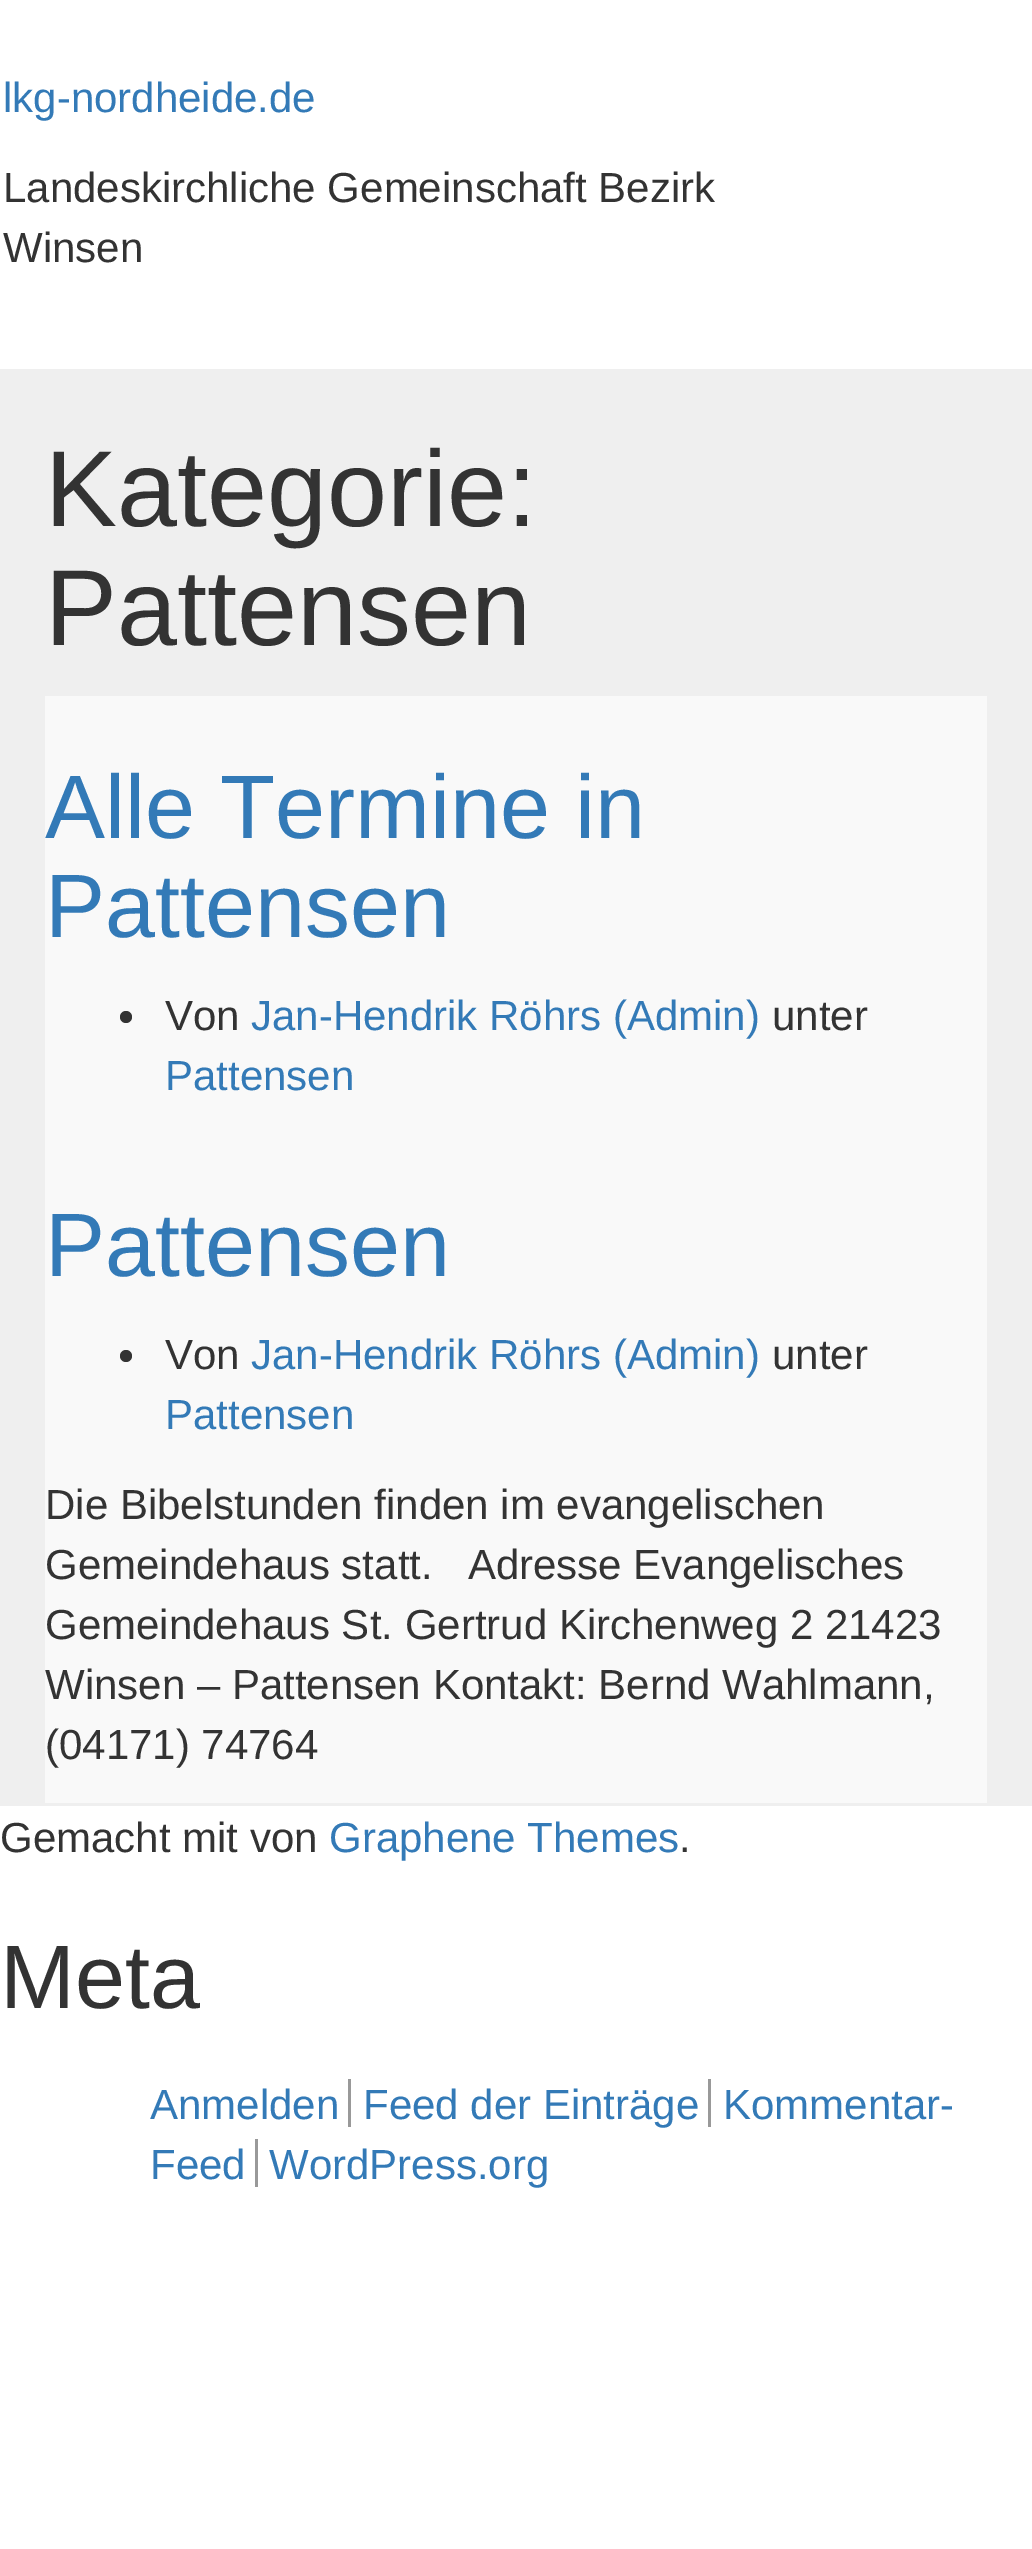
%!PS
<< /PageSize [1032 2549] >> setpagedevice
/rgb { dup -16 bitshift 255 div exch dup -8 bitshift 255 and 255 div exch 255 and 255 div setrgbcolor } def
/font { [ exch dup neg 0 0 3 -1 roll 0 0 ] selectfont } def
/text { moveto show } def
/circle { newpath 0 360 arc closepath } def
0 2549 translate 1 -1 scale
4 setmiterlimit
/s1 { /LiberationSans-Regular 42 font 16#337AB7 rgb } def
/s2 { /LiberationSans-Regular 42 font 16#333333 rgb } def
/s3 { /LiberationSans-Regular 108 font 16#333333 rgb } def
/s4 { /LiberationSans-Regular 90 font 16#337AB7 rgb } def
/s5 { /LiberationSans-Regular 90 font 16#333333 rgb } def
16#FFFFFF rgb
0 0 1032 2549 rectfill
s1
(lkg-nordheide.de) 3 112 text
s2
(Landeskirchliche Gemeinschaft Bezirk) 3 202 text
(Winsen) 3 262 text
16#EFEFEF rgb
0 369 1032 1437 rectfill
s3
(Kategorie:) 45 526 text
(Pattensen) 45 645 text
16#F9F9F9 rgb
45 696 942 1107 rectfill
s4
(Alle Termine in) 45 838 text
(Pattensen) 45 937 text
16#333333 rgb
126 1017 6 circle fill
s2
(Von) 165 1030 text
s1
(Jan-Hendrik Röhrs \(Admin\)) 251 1030 text
s2
(unter) 772 1030 text
s1
(Pattensen) 165 1090 text
s4
(Pattensen) 45 1276 text
16#333333 rgb
126 1356 6 circle fill
s2
(Von) 165 1369 text
s1
(Jan-Hendrik Röhrs \(Admin\)) 251 1369 text
s2
(unter) 772 1369 text
s1
(Pattensen) 165 1429 text
s2
(Die Bibelstunden finden im evangelischen) 45 1519 text
(Gemeindehaus statt.   Adresse Evangelisches) 45 1579 text
(Gemeindehaus St. Gertrud Kirchenweg 2 21423) 45 1639 text
(Winsen – Pattensen Kontakt: Bernd Wahlmann,) 45 1699 text
(\(04171\) 74764) 45 1759 text
(Gemacht mit von) 0 1852 text
s1
(Graphene Themes) 329 1852 text
s2
(.) 679 1852 text
s5
(Meta) 0 2008 text
s1
(Anmelden) 150 2119 text
16#999999 rgb
348 2079 3 48 rectfill
s1
(Feed der Einträge) 363 2119 text
16#999999 rgb
708 2079 3 48 rectfill
s1
(Kommentar-) 723 2119 text
(Feed) 150 2179 text
16#999999 rgb
255 2139 3 48 rectfill
s1
(WordPress.org) 269 2179 text
showpage
